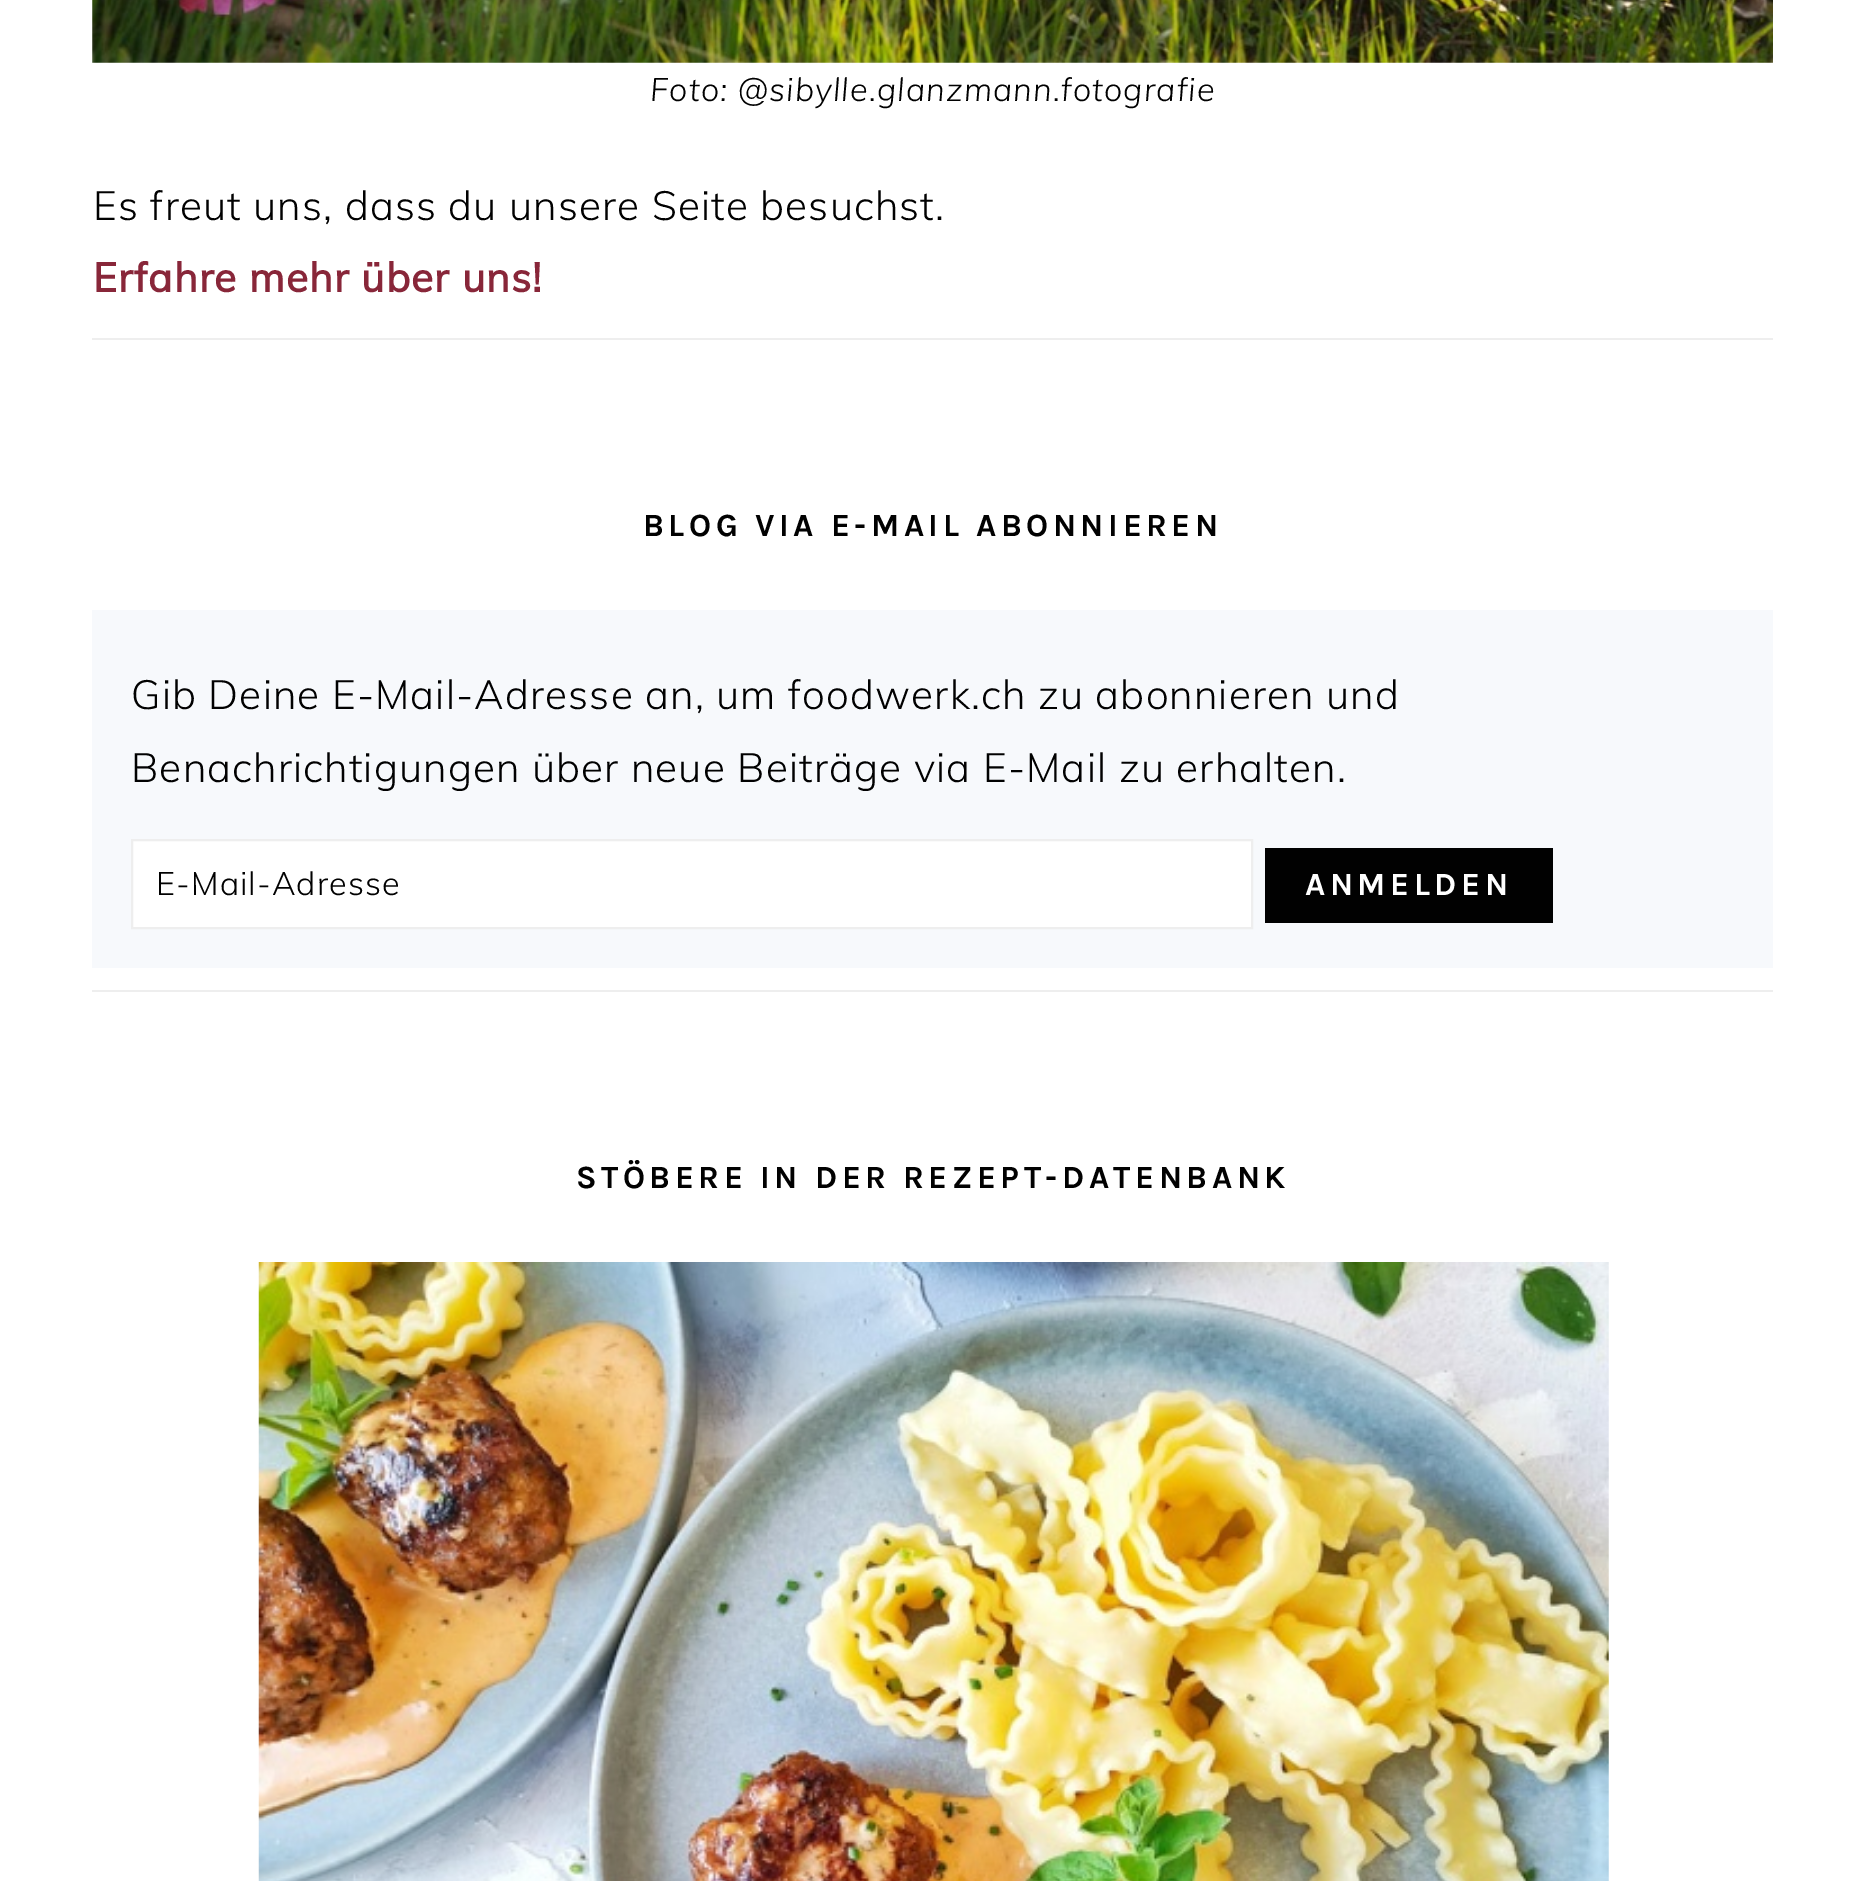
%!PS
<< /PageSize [1864 1881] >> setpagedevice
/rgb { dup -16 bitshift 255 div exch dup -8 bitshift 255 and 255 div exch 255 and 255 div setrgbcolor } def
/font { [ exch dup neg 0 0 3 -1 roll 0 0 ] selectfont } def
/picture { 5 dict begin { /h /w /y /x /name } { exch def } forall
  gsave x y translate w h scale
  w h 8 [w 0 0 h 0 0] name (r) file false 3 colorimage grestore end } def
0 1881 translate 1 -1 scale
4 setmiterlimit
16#FFFFFF rgb
0 0 1864 1881 rectfill
16#EEEEEE rgb
92 338 1681 2 rectfill
(pic1.raw) 92 0 1681 63 picture
/Muli-LightItalic 32.4 font
16#010101 rgb
650 101 moveto 1.12 0 (Foto: @sibylle.glanzmann.fotografie) ashow
/Muli-Light 40.5 font
93 220 moveto 1.12 0 (Es freut uns, dass du unsere Seite besuchst.) ashow
/Muli-Bold 40.5 font
16#882639 rgb
93 292 moveto 1.12 0 (Erfahre mehr über uns!) ashow
16#EEEEEE rgb
92 990 1681 2 rectfill
/Karla-Bold 32.4 font
16#010101 rgb
643 536 moveto 4.5 0 (BLOG VIA E-MAIL ABONNIEREN) ashow
16#F7F9FC rgb
92 610 1681 358 rectfill
/Muli-Light 40.5 font
16#010101 rgb
131 709 moveto 1.12 0 (Gib Deine E-Mail-Adresse an, um foodwerk.ch zu abonnieren und) ashow
131 782 moveto 1.12 0 (Benachrichtigungen über neue Beiträge via E-Mail zu erhalten.) ashow
16#FFFFFF rgb
132 840 moveto 1252 840 lineto 1252 928 lineto 132 928 lineto closepath gsave fill grestore
16#EEEEEE rgb
2 setlinewidth
stroke
/Muli-Light 32.4 font
16#010101 rgb
156 895 moveto 1.12 0 (E-Mail-Adresse) ashow
1265 848 288 75 rectfill
/Karla-Bold 32.4 font
16#FFFFFF rgb
1305 895 moveto 4.5 0 (ANMELDEN) ashow
16#010101 rgb
576 1188 moveto 4.5 0 (STÖBERE IN DER REZEPT-DATENBANK) ashow
(pic2.raw) 258 1262 1351 619 picture
showpage
